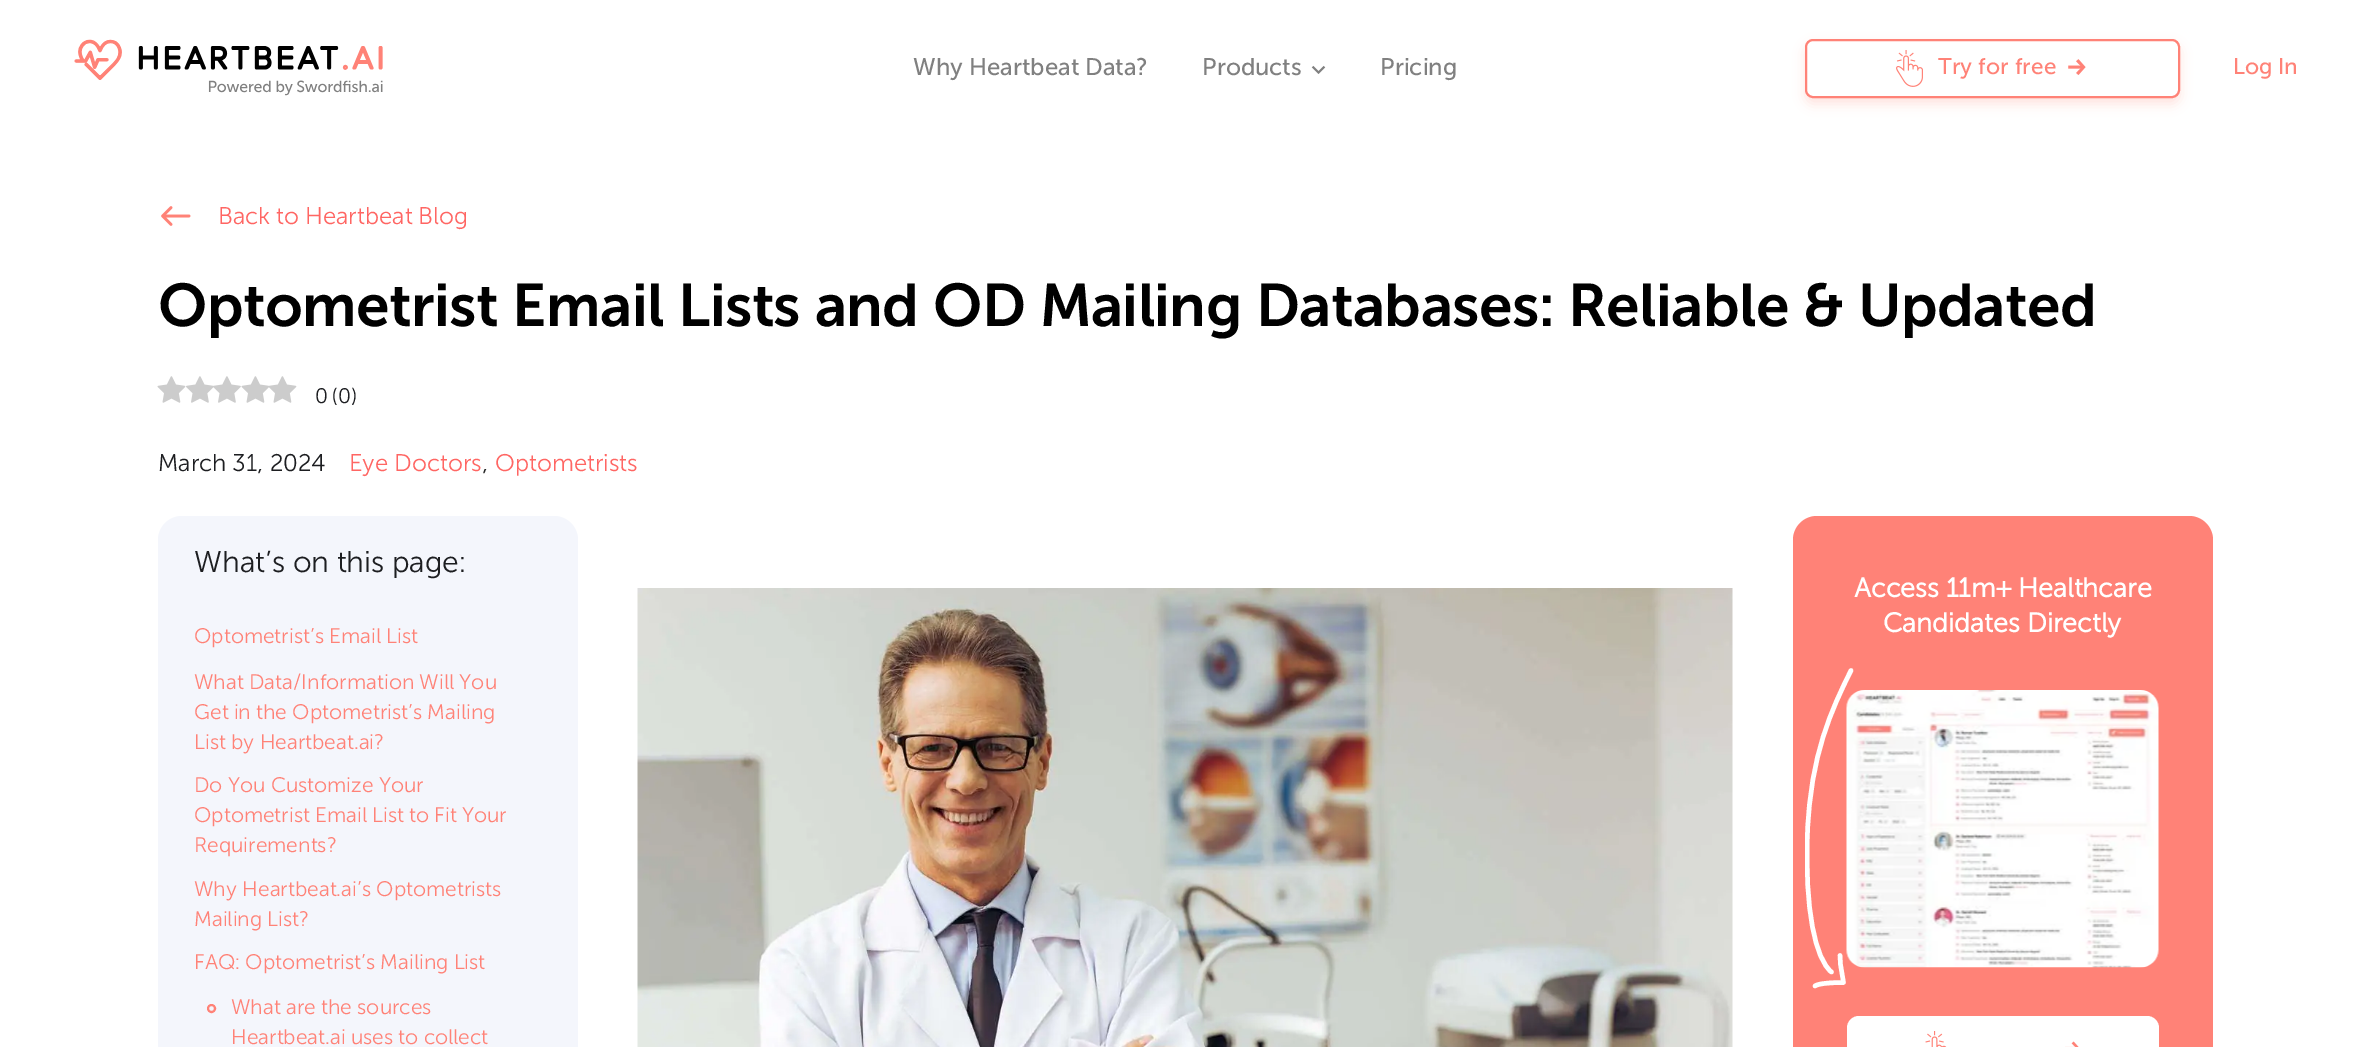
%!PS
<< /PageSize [2369 1047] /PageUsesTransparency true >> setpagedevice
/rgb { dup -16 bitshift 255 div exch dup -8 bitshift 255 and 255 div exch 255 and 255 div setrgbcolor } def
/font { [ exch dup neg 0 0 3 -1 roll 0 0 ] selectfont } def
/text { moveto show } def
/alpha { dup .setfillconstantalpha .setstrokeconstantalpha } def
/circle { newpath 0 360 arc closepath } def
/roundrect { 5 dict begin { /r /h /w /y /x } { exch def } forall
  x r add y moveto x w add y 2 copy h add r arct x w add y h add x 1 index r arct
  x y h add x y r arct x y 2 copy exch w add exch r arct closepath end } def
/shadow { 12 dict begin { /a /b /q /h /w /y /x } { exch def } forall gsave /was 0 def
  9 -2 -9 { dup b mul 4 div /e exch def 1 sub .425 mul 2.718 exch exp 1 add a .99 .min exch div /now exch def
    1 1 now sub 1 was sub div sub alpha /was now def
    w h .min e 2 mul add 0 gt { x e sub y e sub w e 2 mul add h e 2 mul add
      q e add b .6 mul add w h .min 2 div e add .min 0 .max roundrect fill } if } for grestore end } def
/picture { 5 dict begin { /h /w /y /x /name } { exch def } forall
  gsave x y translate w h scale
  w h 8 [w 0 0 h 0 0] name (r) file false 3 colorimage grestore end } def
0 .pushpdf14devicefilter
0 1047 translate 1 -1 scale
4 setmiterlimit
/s1 { /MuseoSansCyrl-Regular 24 font 16#808080 rgb } def
/s2 { /MuseoSansCyrl-Regular 22.5 font 16#FF8277 rgb } def
/s3 { /MuseoSansCyrl-Light 24 font 16#FF6663 rgb } def
/s4 { /MuseoSansCyrl-Light 21 font 16#1D1E21 rgb } def
/s5 { /MuseoSansCyrl-Light 24 font 16#1D1E21 rgb } def
/s6 { /MuseoSansCyrl-Light 24 font 16#252525 rgb } def
/s7 { /MuseoSansCyrl-Light 30 font 16#1D1E21 rgb } def
/s8 { /MuseoSansCyrl-Light 21 font 16#FF8277 rgb } def
/s9 { /MuseoSansCyrl-Bold 27 font 16#FFFFFF rgb } def
16#FFFFFF rgb
0 0 2369 1047 rectfill
(pic1.raw) 74 39 309 57 picture
s1
(Why Heartbeat Data?) 913 75 text
(Products) 1202 75 text
(pic2.raw) 1311 65 15 9 picture
(Pricing) 1380 75 text
16#FF8277 rgb
1805 45 375 59 8 6 0.24 shadow
16#FFFFFF rgb
1806 40 373 57 7 roundrect gsave fill grestore
16#FF8277 rgb
2 setlinewidth
stroke
(pic3.raw) 1896 50 27 37 picture
/MuseoSansCyrl-Regular 22.5 font
1938 74 moveto 0.1 0 (Try for free) ashow
(pic4.raw) 2068 59 18 16 picture
(Log In) 2233 74 text
(pic5.raw) 161 206 30 20 picture
s3
(Back to Heartbeat Blog) 218 224 text
/MuseoSansCyrl-SemiBold 60 font
16#000000 rgb
158 326 moveto -0.6 0 (Optometrist Email Lists and OD Mailing Databases: Reliable & Updated) ashow
(pic6.raw) 157 376 29 27 picture
(pic7.raw) 186 376 28 27 picture
(pic8.raw) 213 376 28 27 picture
(pic9.raw) 241 376 28 27 picture
(pic10.raw) 269 376 28 27 picture
s4
(0) 315 403 text
(\(0\)) 332 403 text
s5
(March 31, 2024) 158 471 text
s3
(Eye Doctors) 349 471 text
s6
(,) 482 471 text
s3
(Optometrists) 495 471 text
16#F4F6FC rgb
158 516 420 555 24 roundrect fill
s7
(What’s on this page:) 194 572 text
s8
(Optometrist’s Email List) 194 643 text
(What Data/Information Will You) 194 689 text
(Get in the Optometrist’s Mailing) 194 719 text
(List by Heartbeat.ai?) 194 749 text
(Do You Customize Your) 194 792 text
(Optometrist Email List to Fit Your) 194 822 text
(Requirements?) 194 852 text
(Why Heartbeat.ai’s Optometrists) 194 896 text
(Mailing List?) 194 926 text
(FAQ: Optometrist’s Mailing List) 194 969 text
211.5 1008.5 3.5 circle stroke
(What are the sources) 231 1014 text
(Heartbeat.ai uses to collect) 231 1044 text
(pic11.raw) 637 588 1096 459 picture
1793 516 420 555 24 roundrect fill
s9
(Access 11m+ Healthcare) 1854 597 text
(Candidates Directly) 1883 632 text
4.5 setlinewidth
1 setlinecap
1 setlinejoin
1840 955.5 moveto 1840.5 964.5 lineto 1843.5 982.5 lineto 1835.5 982.5 1818.5 983 1815 986 curveto stroke
(pic12.raw) 1846 690 313 278 picture
gsave
1805 663 69 329 rectclip
0 setlinejoin
1851 670.5 moveto 1831.5 709.5 1810.5 755 1807.5 832.5 curveto 1804.5 910 1815.5 959.5 1831.5 972 curveto stroke
grestore
1847 1016 312 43 12 roundrect fill
(pic13.raw) 1925 1031 22 16 picture
(pic14.raw) 2065 1041 14 6 picture
.poppdf14devicefilter showpage
